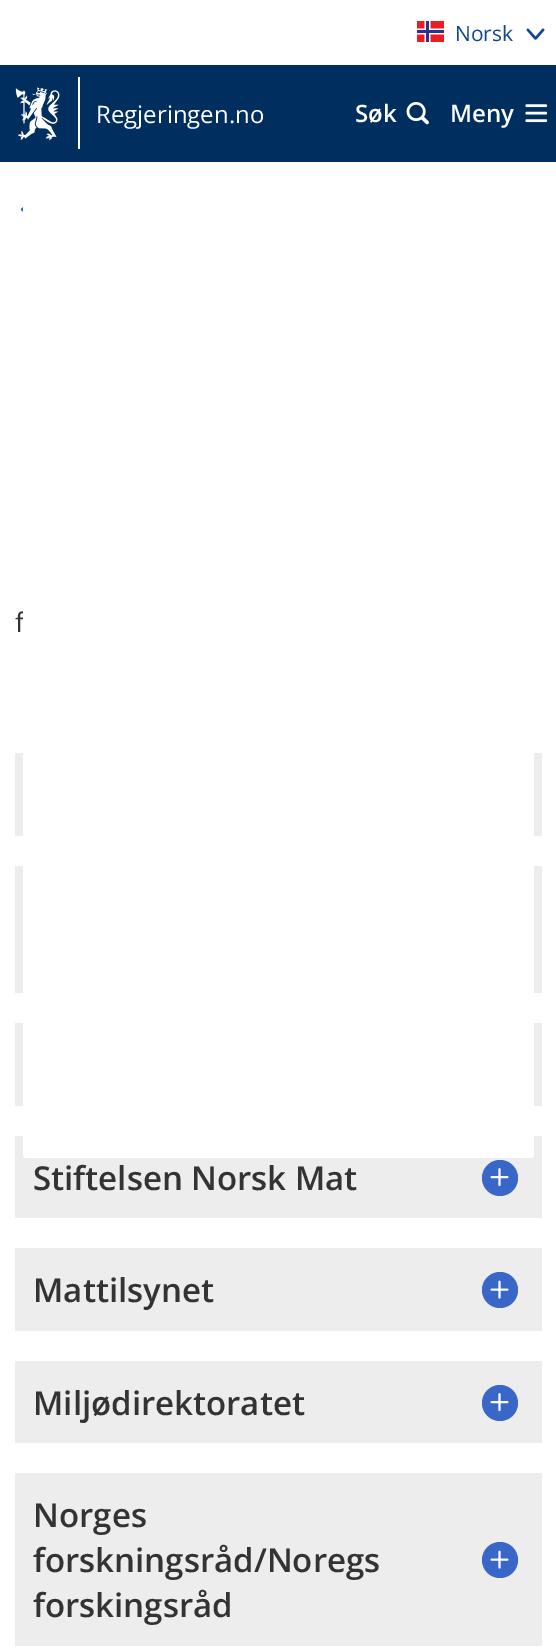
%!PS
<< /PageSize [556 1650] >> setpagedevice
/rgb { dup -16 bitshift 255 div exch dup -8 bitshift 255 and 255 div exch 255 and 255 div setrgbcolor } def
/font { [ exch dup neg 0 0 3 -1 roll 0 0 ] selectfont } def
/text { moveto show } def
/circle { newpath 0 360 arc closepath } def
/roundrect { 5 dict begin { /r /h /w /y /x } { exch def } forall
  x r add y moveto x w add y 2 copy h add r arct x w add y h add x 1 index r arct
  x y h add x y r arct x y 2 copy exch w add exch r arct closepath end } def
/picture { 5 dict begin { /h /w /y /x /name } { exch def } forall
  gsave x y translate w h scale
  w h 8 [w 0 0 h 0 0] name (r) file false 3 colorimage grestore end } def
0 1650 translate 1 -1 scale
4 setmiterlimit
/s1 { /OpenSans-Regular 21 font 16#144696 rgb } def
/s2 { /OpenSans-Regular 24 font 16#FFFFFF rgb } def
/s3 { /OpenSans-SemiBold 24 font 16#FFFFFF rgb } def
/s4 { /OpenSans-Regular 27 font 16#333333 rgb } def
/s5 { /OpenSans-SemiBold 33 font 16#333333 rgb } def
16#FFFFFF rgb
0 0 556 1650 rectfill
(pic1.raw) 417 21 27 21 picture
s1
(Norsk) 455 41 text
(pic2.raw) 526 28 19 12 picture
16#002E5E rgb
0 65 556 97 rectfill
(pic3.raw) 15 87 45 54 picture
16#FFFFFF rgb
78 77 2 72 rectfill
s2
(Regjeringen.no) 96 123 text
s3
(Søk) 355 122 text
(pic4.raw) 406 102 23 23 picture
(Meny) 450 122 text
(pic5.raw) 525 104 23 19 picture
(pic6.raw) 20 207 3 5 picture
s4
(f) 15 632 text
16#EDEDED rgb
15 753 527 83 rectfill
15 866 527 127 rectfill
15 1023 527 83 rectfill
15 1136 527 82 rectfill
16#FFFFFF rgb
23 176 511 982 3 roundrect fill
s5
(Stiftelsen Norsk Mat) 33 1190 text
16#3867C8 rgb
500 1178 18 circle fill
(pic7.raw) 490 1168 19 19 picture
16#EDEDED rgb
15 1248 527 83 rectfill
s5
(Mattilsynet) 33 1302 text
16#3867C8 rgb
500 1290 18 circle fill
(pic8.raw) 490 1280 19 19 picture
16#EDEDED rgb
15 1361 527 82 rectfill
s5
(Miljødirektoratet) 33 1415 text
16#3867C8 rgb
500 1403 18 circle fill
(pic7.raw) 490 1393 19 19 picture
16#EDEDED rgb
15 1473 527 173 rectfill
s5
(Norges) 33 1527 text
(forskningsråd/Noregs) 33 1572 text
(forskingsråd) 33 1617 text
16#3867C8 rgb
500 1560 18 circle fill
(pic8.raw) 490 1550 19 19 picture
showpage
